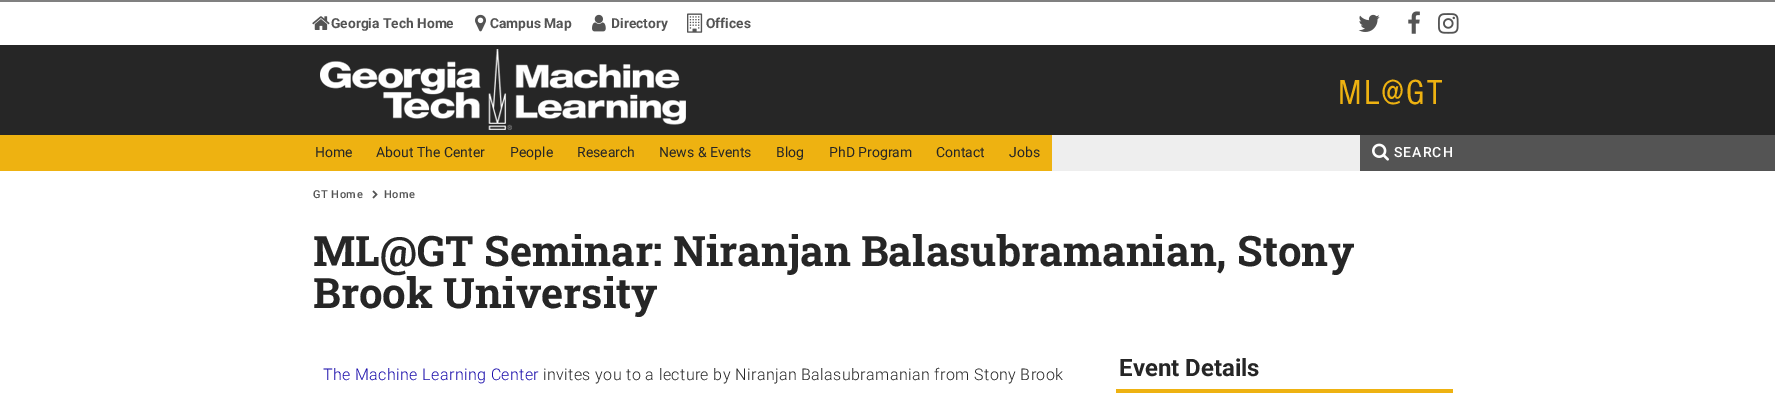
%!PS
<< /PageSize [1775 399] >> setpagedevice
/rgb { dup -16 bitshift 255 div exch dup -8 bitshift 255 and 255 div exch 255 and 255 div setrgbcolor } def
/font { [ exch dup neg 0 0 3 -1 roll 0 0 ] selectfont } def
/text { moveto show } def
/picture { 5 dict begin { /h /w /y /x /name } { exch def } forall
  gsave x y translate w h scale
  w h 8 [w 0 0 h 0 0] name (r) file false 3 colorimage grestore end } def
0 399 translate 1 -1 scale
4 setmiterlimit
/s1 { /Roboto-Bold 13.75 font 16#545454 rgb } def
/s2 { /Roboto-Regular 14 font 16#262626 rgb } def
/s3 { /RobotoSlab-Bold 42 font 16#262626 rgb } def
/s4 { /Roboto-Bold 24 font 16#262626 rgb } def
16#FFFFFF rgb
0 0 1775 399 rectfill
16#EEB211 rgb
0 135 1052 36 rectfill
16#545454 rgb
1360 135 415 36 rectfill
16#EEEEEE rgb
1052 135 308 36 rectfill
16#808080 rgb
0 0 1775 2 rectfill
(pic1.raw) 312 16 18 14 picture
s1
(Georgia Tech Home) 331 28 text
(pic2.raw) 475 14 11 18 picture
(Campus Map) 490 28 text
(pic3.raw) 592 14 14 18 picture
(Directory) 611 28 text
(pic4.raw) 687 13 16 20 picture
(Offices) 706 28 text
(pic5.raw) 1358 14 22 18 picture
(pic6.raw) 1408 11 12 23 picture
(pic7.raw) 1438 13 21 21 picture
s2
(Home) 315 157 text
(About The Center) 376 157 text
(People) 510 157 text
(Research) 577 157 text
(News & Events) 659 157 text
(Blog) 776 157 text
(PhD Program) 829 157 text
(Contact) 936 157 text
(Jobs) 1009 157 text
(pic8.raw) 1372 143 17 18 picture
/Roboto-Medium 14 font
16#FFFFFF rgb
1394 157 moveto 1 0 (SEARCH) ashow
/Roboto-Medium 11 font
16#545454 rgb
313 198 moveto 0.5 0 (GT Home) ashow
(pic9.raw) 372 190 6 9 picture
384 198 moveto 0.5 0 (Home) ashow
16#262626 rgb
0 45 1775 90 rectfill
(pic10.raw) 320 49 366 81 picture
/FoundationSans-Regular 36 font
16#EEB211 rgb
1338 104 moveto 2 0 (ML@GT) ashow
s3
(ML@GT Seminar: Niranjan Balasubramanian, Stony) 313 266 text
(Brook University) 313 308 text
/Roboto-Light 16 font
16#1A0DAB rgb
323 380 moveto 0.4 0 (The Machine Learning Center) ashow
16#262626 rgb
543 380 moveto 0.4 0 (invites you to a lecture by Niranjan Balasubramanian from Stony Brook) ashow
16#EEB211 rgb
1116 389 337 4 rectfill
s4
(Event Details) 1119 376 text
showpage
